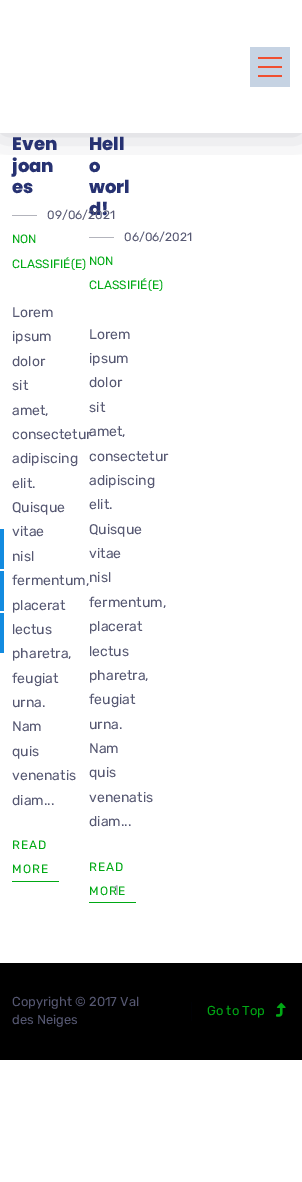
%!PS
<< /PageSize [302 1182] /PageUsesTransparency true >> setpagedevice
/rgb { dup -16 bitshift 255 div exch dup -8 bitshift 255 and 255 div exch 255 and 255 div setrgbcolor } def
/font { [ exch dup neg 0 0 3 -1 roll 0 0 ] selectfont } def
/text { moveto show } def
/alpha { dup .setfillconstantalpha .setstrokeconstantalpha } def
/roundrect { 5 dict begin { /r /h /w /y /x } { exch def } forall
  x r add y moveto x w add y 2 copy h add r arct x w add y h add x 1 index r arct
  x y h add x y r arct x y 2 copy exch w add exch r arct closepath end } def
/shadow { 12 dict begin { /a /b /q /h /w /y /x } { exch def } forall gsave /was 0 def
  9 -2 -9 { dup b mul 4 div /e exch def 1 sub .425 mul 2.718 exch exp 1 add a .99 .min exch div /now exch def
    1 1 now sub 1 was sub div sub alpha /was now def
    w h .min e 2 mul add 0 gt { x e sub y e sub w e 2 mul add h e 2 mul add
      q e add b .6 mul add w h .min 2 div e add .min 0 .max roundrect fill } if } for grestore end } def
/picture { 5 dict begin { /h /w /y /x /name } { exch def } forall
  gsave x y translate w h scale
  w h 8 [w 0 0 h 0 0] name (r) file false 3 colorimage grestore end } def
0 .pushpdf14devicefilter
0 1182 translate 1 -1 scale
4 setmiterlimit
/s1 { /Poppins-ExtraBold 18 font 16#273272 rgb } def
/s2 { /Rubik-Regular 12 font 16#565872 rgb } def
/s3 { /Rubik-Regular 12 font 16#00A914 rgb } def
/s4 { /Rubik-Regular 14 font 16#565872 rgb } def
/s5 { /Rubik-Light 14 font 16#8D8EA3 rgb } def
/s6 { /Rubik-Regular 13 font 16#565872 rgb } def
/s7 { /Rubik-Regular 13 font 16#00A914 rgb } def
16#FFFFFF rgb
0 0 302 1182 rectfill
16#128BE0 rgb
0 529 4 40 rectfill
0 571 4 40 rectfill
0 613 4 40 rectfill
gsave
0 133 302 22 rectclip
16#020620 rgb
0 0 302 133 0 17.5 0.2 shadow
grestore
16#C6D3E3 rgb
250 47 40 40 rectfill
16#F04F30 rgb
258 57 24 2 rectfill
258 75 24 2 rectfill
258 66 24 2 rectfill
s1
(Even) 12 150 text
(joan) 12 172 text
(es) 12 193 text
16#B3B4BC rgb
12 215 25 1 rectfill
s1
(d!) 89 215 text
s2
(09/06/2021) 47 219 text
s3
(NON) 12 243 text
(CLASSIFIÉ\(E\)) 12 268 text
s4
(Lorem) 12 317 text
(ipsum) 12 341 text
(dolor) 12 366 text
(sit) 12 390 text
(amet,) 12 415 text
(consectetur) 12 439 text
(adipiscing) 12 463 text
(elit.) 12 488 text
(Quisque) 12 512 text
(vitae) 12 536 text
(nisl) 12 561 text
(fermentum,) 12 585 text
(placerat) 12 610 text
(lectus) 12 634 text
(pharetra,) 12 658 text
(feugiat) 12 683 text
(urna.) 12 707 text
(Nam) 12 731 text
(quis) 12 756 text
(venenatis) 12 780 text
(diam...) 12 805 text
/Rubik-Regular 12 font
16#00A914 rgb
12 849 moveto 1 0 (READ) ashow
12 873 moveto 1 0 (MORE) ashow
12 881 47 1 rectfill
s1
(Hell) 89 150 text
(o) 89 172 text
(worl) 89 193 text
16#B3B4BC rgb
89 237 25 1 rectfill
s2
(06/06/2021) 124 241 text
s3
(NON) 89 265 text
(CLASSIFIÉ\(E\)) 89 289 text
s4
(Lorem) 89 339 text
(ipsum) 89 363 text
(dolor) 89 387 text
(sit) 89 412 text
(amet,) 89 436 text
(consectetur) 89 461 text
(adipiscing) 89 485 text
(elit.) 89 509 text
(Quisque) 89 534 text
(vitae) 89 558 text
(nisl) 89 582 text
(fermentum,) 89 607 text
(placerat) 89 631 text
(lectus) 89 656 text
(pharetra,) 89 680 text
(feugiat) 89 704 text
(urna.) 89 729 text
(Nam) 89 753 text
(quis) 89 777 text
(venenatis) 89 802 text
(diam...) 89 826 text
/Rubik-Regular 12 font
16#00A914 rgb
89 871 moveto 1 0 (READ) ashow
89 895 moveto 1 0 (MORE) ashow
89 902 47 1 rectfill
s5
(1) 113 895 text
16#000000 rgb
0 963 302 97 rectfill
s6
(Copyright © 2017 Val) 12 1006 text
(des Neiges) 12 1024 text
16#000105 rgb
191 1002 1 19 rectfill
s7
(Go to Top) 207 1015 text
(pic1.raw) 276 1002 10 15 picture
.poppdf14devicefilter showpage
